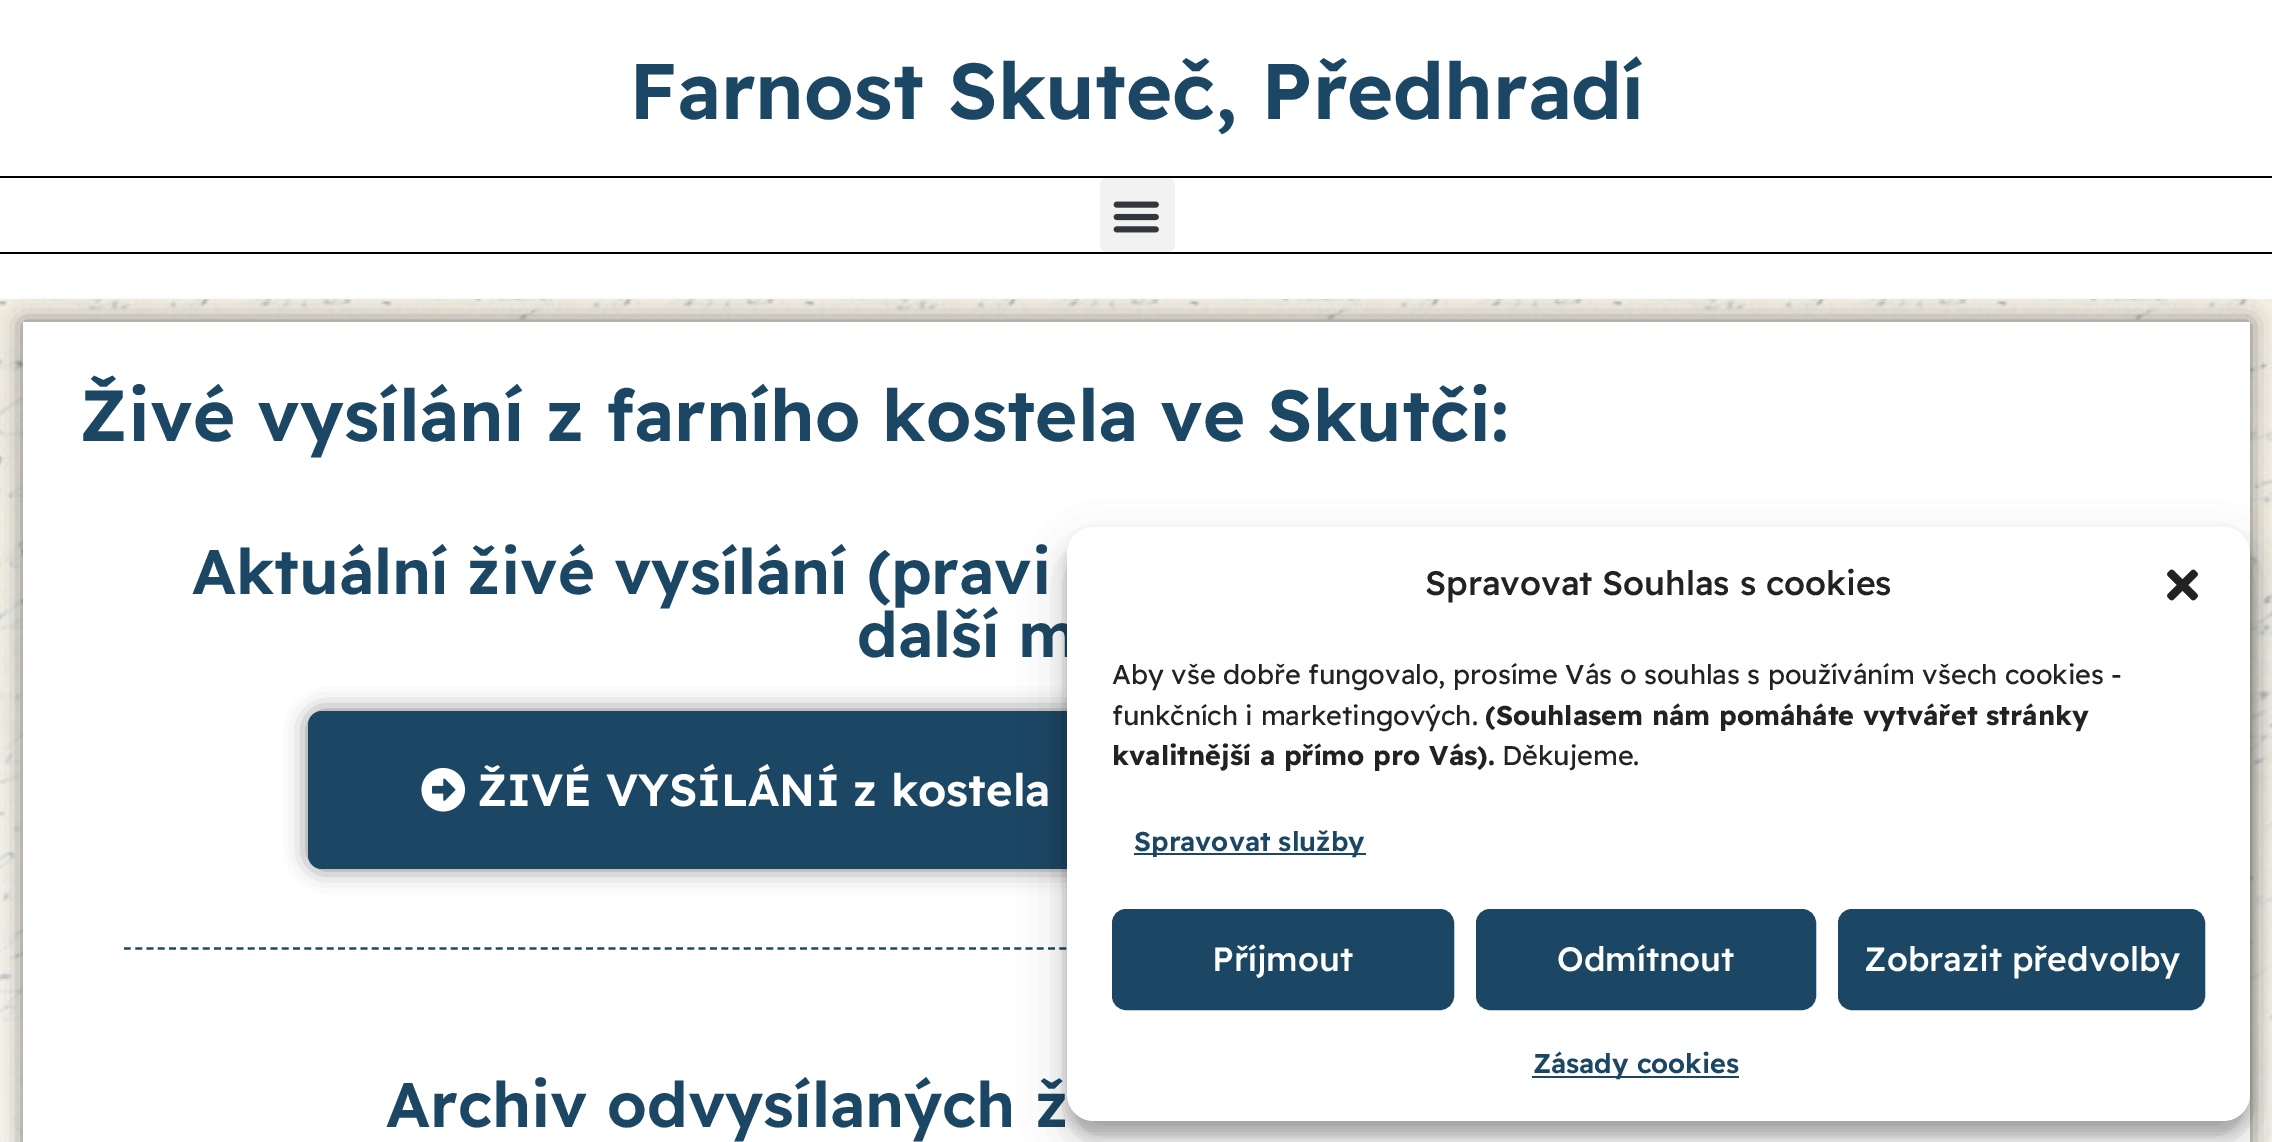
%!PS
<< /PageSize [2272 1142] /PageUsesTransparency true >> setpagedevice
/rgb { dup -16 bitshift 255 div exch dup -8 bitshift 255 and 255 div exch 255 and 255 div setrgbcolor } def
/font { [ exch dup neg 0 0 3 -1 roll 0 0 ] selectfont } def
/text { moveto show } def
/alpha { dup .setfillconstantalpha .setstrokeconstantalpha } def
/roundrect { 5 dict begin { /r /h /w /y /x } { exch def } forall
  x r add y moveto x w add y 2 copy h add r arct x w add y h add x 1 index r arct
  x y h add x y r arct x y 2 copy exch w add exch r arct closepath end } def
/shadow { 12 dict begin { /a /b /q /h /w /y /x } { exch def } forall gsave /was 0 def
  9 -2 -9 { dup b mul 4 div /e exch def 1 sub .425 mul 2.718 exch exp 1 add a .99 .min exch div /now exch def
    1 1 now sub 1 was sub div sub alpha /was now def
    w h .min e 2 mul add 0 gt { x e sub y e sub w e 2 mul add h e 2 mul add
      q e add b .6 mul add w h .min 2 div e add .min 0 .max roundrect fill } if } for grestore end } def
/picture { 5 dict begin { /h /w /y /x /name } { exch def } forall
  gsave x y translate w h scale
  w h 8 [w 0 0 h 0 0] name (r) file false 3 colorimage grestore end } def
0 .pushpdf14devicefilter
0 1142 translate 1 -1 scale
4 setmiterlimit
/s1 { /ReadexPro-SemiBold 78.75 font 16#1B4764 rgb } def
/s2 { /ReadexPro-SemiBold 72 font 16#1B4764 rgb } def
/s3 { /ReadexPro-SemiBold 63 font 16#1B4764 rgb } def
/s4 { /ReadexPro-SemiBold 45 font 16#FFFFFF rgb } def
/s5 { /ReadexPro-Medium 33.75 font 16#222222 rgb } def
/s6 { /ReadexPro-Regular 27 font 16#222222 rgb } def
/s7 { /ReadexPro-Bold 27 font 16#222222 rgb } def
/s8 { /ReadexPro-SemiBold 27 font 16#1B4764 rgb } def
/s9 { /ReadexPro-Medium 33.75 font 16#FFFFFF rgb } def
16#FFFFFF rgb
0 0 2272 1142 rectfill
(pic1.raw) 0 299 2272 843 picture
s1
(Farnost Skuteč, Předhradí) 629 119 text
16#000000 rgb
0 176 2272 2 rectfill
0 252 2272 2 rectfill
16#F2F2F2 rgb
1100 178 75 74 7 roundrect fill
(pic2.raw) 1113 201 46 32 picture
16#000000 rgb
23 322 2227 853 0 11 0.5 shadow
16#FFFFFF rgb
23 322 2227 820 rectfill
s2
(Živé vysílání z farního kostela ve Skutči:) 79 441 text
s3
(Aktuální živé vysílání \(pravi) 192 594 text
(další m) 857 657 text
16#000000 rgb
308 711 1656 158 14 11 0.5 shadow
16#1B4764 rgb
308 711 1656 158 14 roundrect fill
(pic3.raw) 421 767 45 45 picture
s4
(ŽIVÉ VYSÍLÁNÍ z kostela) 477 806 text
16#1B4764 rgb
2.2 setlinewidth
[6.75 4.52] 0 setdash
124 948.5 moveto 2149 948.5 lineto stroke
s3
(Archiv odvysílaných ž) 386 1127 text
16#000000 rgb
1067 540 1183 594 27 7 0.23 shadow
1067 549 1183 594 27 22.5 0.19 shadow
16#FFFFFF rgb
1067 527 1183 594 27 roundrect fill
s5
(Spravovat Souhlas s cookies) 1425 595 text
(pic4.raw) 2167 569 31 32 picture
s6
(Aby vše dobře fungovalo, prosíme Vás o souhlas s používáním všech cookies -) 1112 684 text
(funkčních i marketingových.) 1112 725 text
s7
(\(Souhlasem nám pomáháte vytvářet stránky) 1485 725 text
(kvalitnější a přímo pro Vás\).) 1112 765 text
s6
(Děkujeme.) 1502 765 text
16#1B4764 rgb
1134 853 232 2 rectfill
s8
(Spravovat služby) 1134 851 text
1113 910 340 99 13 roundrect gsave fill grestore
2 setlinewidth
[] 0 setdash
stroke
s9
(Příjmout) 1212 971 text
16#1B4764 rgb
1477 910 338 99 13 roundrect gsave fill grestore
stroke
s9
(Odmítnout) 1557 971 text
16#1B4764 rgb
1839 910 365 99 13 roundrect gsave fill grestore
stroke
s9
(Zobrazit předvolby) 1864 971 text
16#1B4764 rgb
1532 1076 207 2 rectfill
s8
(Zásady cookies) 1533 1073 text
.poppdf14devicefilter showpage
